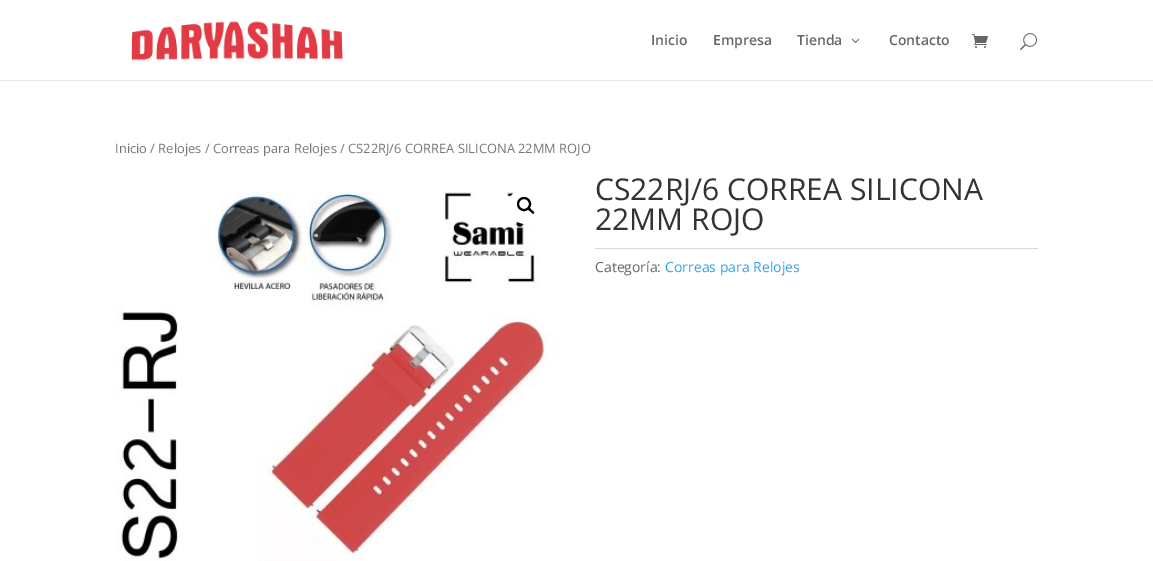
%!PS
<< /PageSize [1153 561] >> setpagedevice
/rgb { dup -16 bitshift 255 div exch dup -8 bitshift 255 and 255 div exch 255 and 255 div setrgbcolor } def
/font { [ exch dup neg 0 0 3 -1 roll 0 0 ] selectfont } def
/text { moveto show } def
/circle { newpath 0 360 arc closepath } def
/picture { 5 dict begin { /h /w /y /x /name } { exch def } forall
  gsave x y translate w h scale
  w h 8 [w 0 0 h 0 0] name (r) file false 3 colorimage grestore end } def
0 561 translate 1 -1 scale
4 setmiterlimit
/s1 { /OpenSans-SemiBold 14 font 16#666666 rgb } def
/s2 { /OpenSans-Regular 12.9 font 16#767676 rgb } def
/s3 { /OpenSans-Regular 30 font 16#333333 rgb } def
/s4 { /OpenSans-Regular 14 font 16#666666 rgb } def
/s5 { /OpenSans-Regular 14 font 16#2EA3F2 rgb } def
16#FFFFFF rgb
0 0 1153 561 rectfill
16#E6E6E6 rgb
0 80 1153 1 rectfill
(pic1.raw) 131 21 212 40 picture
s1
(Inicio) 651 45 text
(Empresa) 713 45 text
(Tienda) 797 45 text
(pic2.raw) 851 38 9 5 picture
(Contacto) 889 45 text
(pic3.raw) 972 34 16 14 picture
(pic4.raw) 1020 33 17 18 picture
s2
(Inicio / Relojes / Correas para Relojes / CS22RJ/6 CORREA SILICONA 22MM ROJO) 115 153 text
(pic5.raw) 116 191 442 370 picture
16#FFFFFF rgb
526 206 18 circle fill
16#000000 rgb
2 setlinewidth
524 204 6 circle stroke
528 208 moveto 529.5 206.5 531 209.5 531.5 210 curveto 532.5 210.5 535 212.5 534 213.5 curveto 532.5 214.5 531 212 530.5 211.5 curveto 529.5 211 527 209 528 208 curveto closepath fill
s3
(CS22RJ/6 CORREA SILICONA) 595 200 text
(22MM ROJO) 595 230 text
16#DADADA rgb
595 248 443 1 rectfill
s4
(Categoría:) 595 272 text
s5
(Correas para Relojes) 665 272 text
showpage
